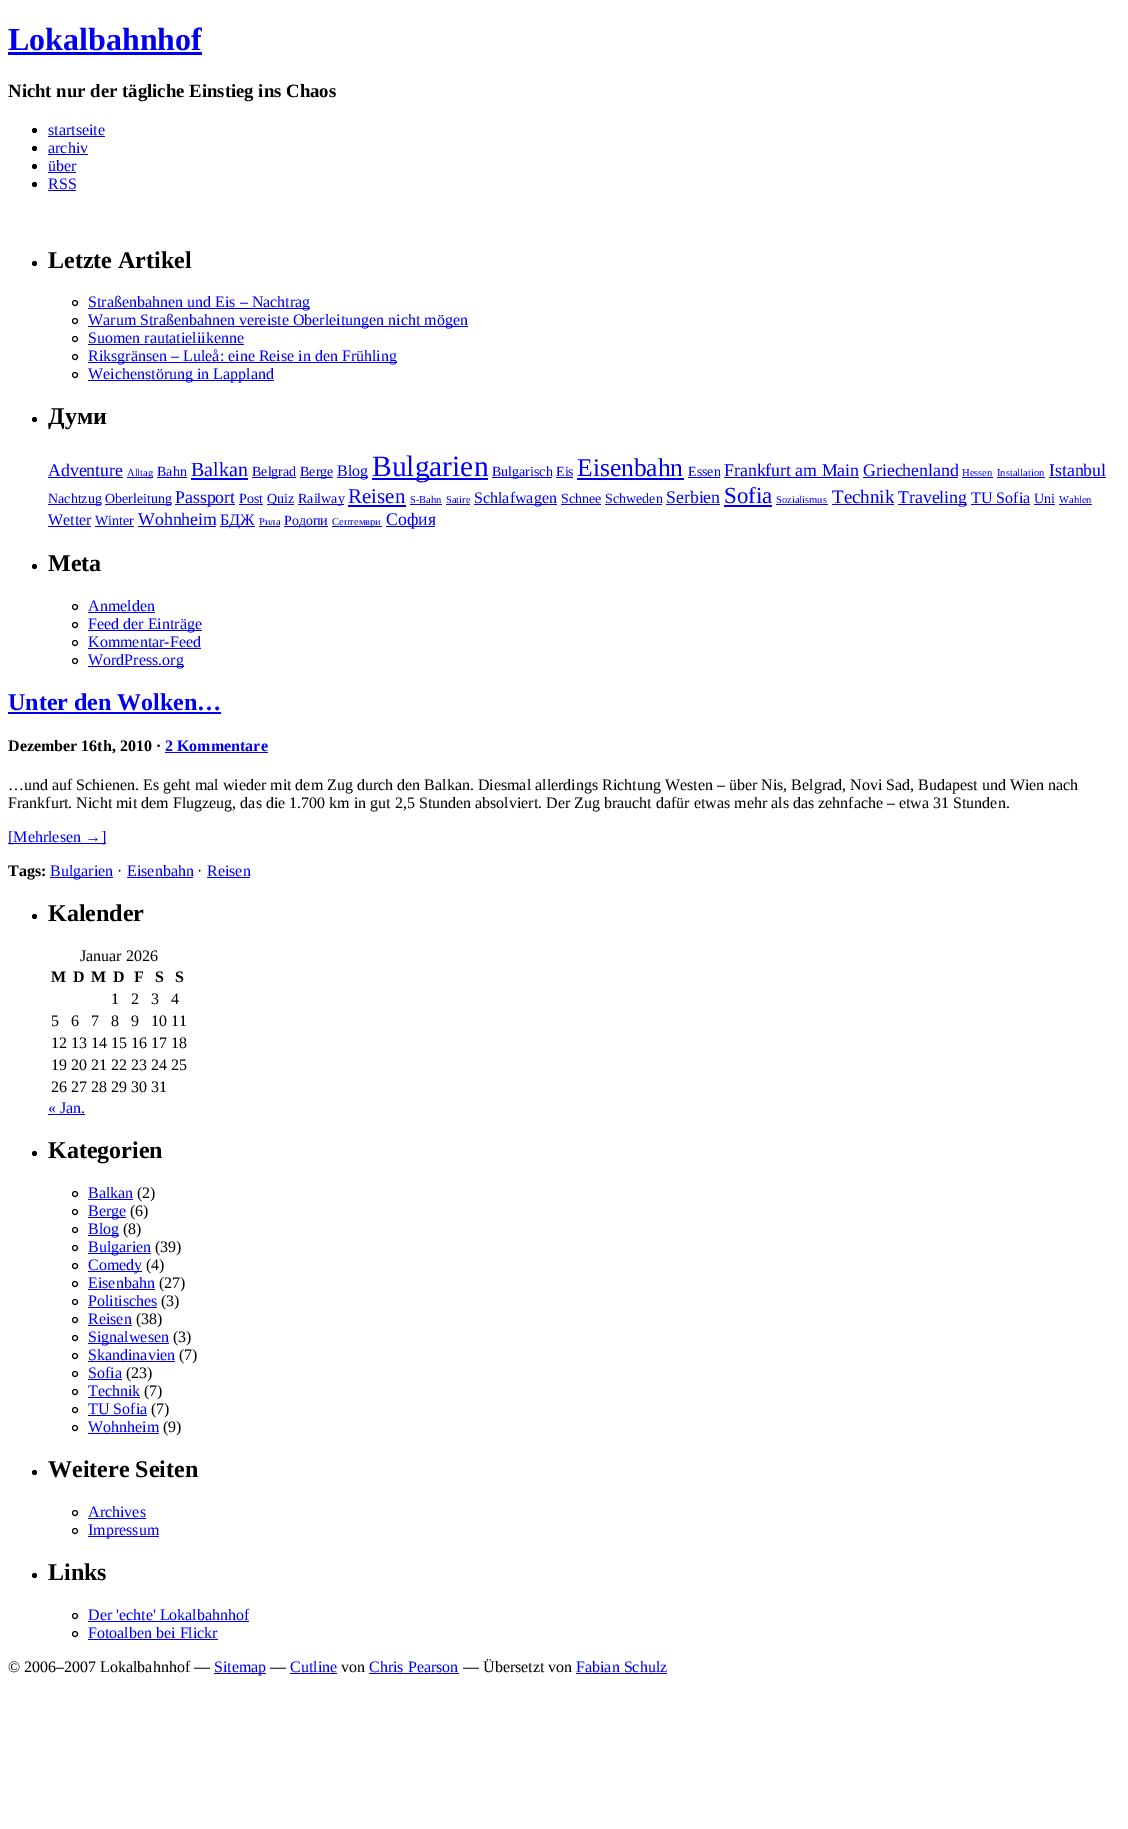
%!PS
<< /PageSize [1128 1829] >> setpagedevice
/rgb { dup -16 bitshift 255 div exch dup -8 bitshift 255 and 255 div exch 255 and 255 div setrgbcolor } def
/font { [ exch dup neg 0 0 3 -1 roll 0 0 ] selectfont } def
/text { moveto show } def
/circle { newpath 0 360 arc closepath } def
0 1829 translate 1 -1 scale
4 setmiterlimit
/s1 { /LiberationSerif-Bold 32 font 16#0000EE rgb } def
/s2 { /LiberationSerif-Bold 18.75 font 16#000000 rgb } def
/s3 { /LiberationSerif-Regular 16 font 16#0000EE rgb } def
/s4 { /LiberationSerif-Bold 24 font 16#000000 rgb } def
/s5 { /LiberationSerif-Regular 17.75 font 16#0000EE rgb } def
/s6 { /LiberationSerif-Regular 10.5 font 16#0000EE rgb } def
/s7 { /LiberationSerif-Regular 14 font 16#0000EE rgb } def
/s8 { /LiberationSerif-Regular 20 font 16#0000EE rgb } def
/s9 { /LiberationSerif-Regular 29.5 font 16#0000EE rgb } def
/s10 { /LiberationSerif-Regular 25.5 font 16#0000EE rgb } def
/s11 { /LiberationSerif-Regular 21 font 16#0000EE rgb } def
/s12 { /LiberationSerif-Regular 23 font 16#0000EE rgb } def
/s13 { /LiberationSerif-Regular 19 font 16#0000EE rgb } def
/s14 { /LiberationSerif-Bold 24 font 16#0000EE rgb } def
/s15 { /LiberationSerif-Bold 16 font 16#000000 rgb } def
/s16 { /LiberationSerif-Bold 16 font 16#0000EE rgb } def
/s17 { /LiberationSerif-Regular 16 font 16#000000 rgb } def
16#FFFFFF rgb
0 0 1128 1829 rectfill
s1
(Lokalbahnhof) 8 50 text
8 52 194 3 rectfill
s2
(Nicht nur der tägliche Einstieg ins Chaos) 8 97 text
34.5 130.5 2.5 circle fill
s3
(startseite) 48 135 text
48 136 57 1 rectfill
16#000000 rgb
34.5 148.5 2.5 circle fill
s3
(archiv) 48 153 text
48 154 40 1 rectfill
16#000000 rgb
34.5 166.5 2.5 circle fill
s3
(über) 48 171 text
48 172 28 1 rectfill
16#000000 rgb
34.5 184.5 2.5 circle fill
s3
(RSS) 48 189 text
48 190 28 1 rectfill
16#000000 rgb
34.5 263.5 2.5 circle fill
s4
(Letzte Artikel) 48 268 text
75 303 2.5 circle stroke
16#0000EE rgb
88 308 222 1 rectfill
s3
(Straßenbahnen und Eis – Nachtrag) 88 307 text
16#000000 rgb
75 321 2.5 circle stroke
16#0000EE rgb
88 326 380 1 rectfill
(Warum Straßenbahnen vereiste Oberleitungen nicht mögen) 88 325 text
16#000000 rgb
75 339 2.5 circle stroke
s3
(Suomen rautatieliikenne) 88 343 text
88 344 156 1 rectfill
16#000000 rgb
75 357 2.5 circle stroke
16#0000EE rgb
88 362 309 1 rectfill
(Riksgränsen – Luleå: eine Reise in den Frühling) 88 361 text
16#000000 rgb
75 375 2.5 circle stroke
16#0000EE rgb
88 380 186 1 rectfill
(Weichenstörung in Lappland) 88 379 text
16#000000 rgb
34.5 419.5 2.5 circle fill
s4
(Думи) 48 424 text
s5
(Adventure) 48 476 text
48 477 75 1 rectfill
127 477 26 1 rectfill
s6
(Alltag) 127 476 text
s7
(Bahn) 157 476 text
157 477 30 1 rectfill
s8
(Balkan) 191 476 text
191 478 57 2 rectfill
252 477 44 1 rectfill
s7
(Belgrad) 252 476 text
300 477 33 1 rectfill
(Berge) 300 476 text
337 477 31 1 rectfill
s3
(Blog) 337 476 text
372 478 116 2 rectfill
s9
(Bulgarien) 372 476 text
492 477 60 1 rectfill
s7
(Bulgarisch) 492 476 text
(Eis) 556 476 text
556 477 17 1 rectfill
s10
(Eisenbahn) 577 476 text
577 478 107 2 rectfill
s7
(Essen) 688 476 text
688 477 32 1 rectfill
s5
(Frankfurt am Main) 724 476 text
724 477 135 1 rectfill
(Griechenland) 863 476 text
863 477 95 1 rectfill
s6
(Hessen) 962 476 text
962 477 31 1 rectfill
(Installation) 997 476 text
997 477 48 1 rectfill
s5
(Istanbul) 1049 476 text
1049 477 57 1 rectfill
48 504 53 1 rectfill
s7
(Nachtzug) 48 503 text
105 504 66 1 rectfill
(Oberleitung) 105 503 text
175 504 60 1 rectfill
s5
(Passport) 175 503 text
s7
(Post) 239 503 text
239 504 24 1 rectfill
267 504 27 1 rectfill
(Quiz) 267 503 text
298 504 46 1 rectfill
(Railway) 298 503 text
s11
(Reisen) 348 503 text
348 505 58 2 rectfill
s6
(S-Bahn) 410 503 text
410 504 32 1 rectfill
(Satire) 446 503 text
446 504 24 1 rectfill
474 504 83 1 rectfill
s3
(Schlafwagen) 474 503 text
s7
(Schnee) 561 503 text
561 504 40 1 rectfill
(Schweden) 605 503 text
605 504 57 1 rectfill
s5
(Serbien) 666 503 text
666 504 54 1 rectfill
s12
(Sofia) 724 503 text
724 505 48 2 rectfill
s6
(Sozialismus) 776 503 text
776 504 52 1 rectfill
s13
(Technik) 832 503 text
832 504 62 1 rectfill
898 504 69 1 rectfill
s5
(Traveling) 898 503 text
s3
(TU Sofia) 971 503 text
971 504 59 1 rectfill
s7
(Uni) 1034 503 text
1034 504 21 1 rectfill
s6
(Wahlen) 1059 503 text
1059 504 33 1 rectfill
s3
(Wetter) 48 525 text
48 526 43 1 rectfill
s7
(Winter) 95 525 text
95 526 39 1 rectfill
s5
(Wohnheim) 138 525 text
138 526 78 1 rectfill
220 526 35 1 rectfill
s3
(БДЖ) 220 525 text
s6
(Рила) 259 525 text
259 526 21 1 rectfill
284 526 44 1 rectfill
s7
(Родопи) 284 525 text
332 526 50 1 rectfill
s6
(Септември) 332 525 text
386 526 49 1 rectfill
s5
(София) 386 525 text
16#000000 rgb
34.5 566.5 2.5 circle fill
s4
(Meta) 48 571 text
75 607 2.5 circle stroke
s3
(Anmelden) 88 611 text
88 612 67 1 rectfill
16#000000 rgb
75 625 2.5 circle stroke
16#0000EE rgb
88 630 114 1 rectfill
(Feed der Einträge) 88 629 text
16#000000 rgb
75 643 2.5 circle stroke
s3
(Kommentar-Feed) 88 647 text
88 648 113 1 rectfill
16#000000 rgb
75 661 2.5 circle stroke
16#0000EE rgb
88 666 96 1 rectfill
(WordPress.org) 88 665 text
s14
(Unter den Wolken…) 8 710 text
8 712 213 2 rectfill
s15
(Dezember 16th, 2010 ·) 8 751 text
s16
(2 Kommentare) 165 751 text
165 752 103 1 rectfill
s17
(…und auf Schienen. Es geht mal wieder mit dem Zug durch den Balkan. Diesmal allerdings Richtung Westen – über Nis, Belgrad, Novi Sad, Budapest und Wien nach) 8 790 text
(Frankfurt. Nicht mit dem Flugzeug, das die 1.700 km in gut 2,5 Stunden absolviert. Der Zug braucht dafür etwas mehr als das zehnfache – etwa 31 Stunden.) 8 808 text
16#0000EE rgb
8 843 98 1 rectfill
([Mehrlesen →]) 8 842 text
s15
(Tags:) 8 876 text
16#0000EE rgb
50 877 63 1 rectfill
s3
(Bulgarien) 50 876 text
s17
(·) 117 876 text
s3
(Eisenbahn) 127 876 text
127 877 66 1 rectfill
s17
(·) 197 876 text
s3
(Reisen) 207 876 text
207 877 43 1 rectfill
16#000000 rgb
34.5 916.5 2.5 circle fill
s4
(Kalender) 48 921 text
s17
(Januar 2026) 80 961 text
s15
(M) 51 982 text
(D) 73 982 text
(M) 91 982 text
(D) 113 982 text
(F) 134 982 text
(S) 155 982 text
(S) 175 982 text
s17
(1) 111 1004 text
(2) 131 1004 text
(3) 151 1004 text
(4) 171 1004 text
(5) 51 1026 text
(6) 71 1026 text
(7) 91 1026 text
(8) 111 1026 text
(9) 131 1026 text
(10 11) 151 1026 text
(12 13 14 15 16 17 18) 51 1048 text
(19 20 21 22 23 24 25) 51 1070 text
(26 27 28 29 30 31) 51 1092 text
s3
(« Jan.) 48 1113 text
48 1114 37 1 rectfill
16#000000 rgb
34.5 1153.5 2.5 circle fill
s4
(Kategorien) 48 1158 text
75 1194 2.5 circle stroke
s3
(Balkan) 88 1198 text
88 1199 45 1 rectfill
s17
(\(2\)) 137 1198 text
75 1212 2.5 circle stroke
16#0000EE rgb
88 1217 38 1 rectfill
(Berge) 88 1216 text
s17
(\(6\)) 130 1216 text
75 1230 2.5 circle stroke
16#0000EE rgb
88 1235 31 1 rectfill
(Blog) 88 1234 text
s17
(\(8\)) 123 1234 text
75 1248 2.5 circle stroke
16#0000EE rgb
88 1253 63 1 rectfill
(Bulgarien) 88 1252 text
s17
(\(39\)) 155 1252 text
75 1266 2.5 circle stroke
16#0000EE rgb
88 1271 54 1 rectfill
(Comedy) 88 1270 text
s17
(\(4\)) 146 1270 text
75 1284 2.5 circle stroke
s3
(Eisenbahn) 88 1288 text
88 1289 67 1 rectfill
s17
(\(27\)) 159 1288 text
75 1302 2.5 circle stroke
s3
(Politisches) 88 1306 text
88 1307 69 1 rectfill
s17
(\(3\)) 161 1306 text
75 1320 2.5 circle stroke
s3
(Reisen) 88 1324 text
88 1325 44 1 rectfill
s17
(\(38\)) 136 1324 text
75 1338 2.5 circle stroke
16#0000EE rgb
88 1343 81 1 rectfill
(Signalwesen) 88 1342 text
s17
(\(3\)) 173 1342 text
75 1356 2.5 circle stroke
s3
(Skandinavien) 88 1360 text
88 1361 87 1 rectfill
s17
(\(7\)) 179 1360 text
75 1374 2.5 circle stroke
s3
(Sofia) 88 1378 text
88 1379 34 1 rectfill
s17
(\(23\)) 126 1378 text
75 1392 2.5 circle stroke
s3
(Technik) 88 1396 text
88 1397 52 1 rectfill
s17
(\(7\)) 144 1396 text
75 1410 2.5 circle stroke
s3
(TU Sofia) 88 1414 text
88 1415 59 1 rectfill
s17
(\(7\)) 151 1414 text
75 1428 2.5 circle stroke
s3
(Wohnheim) 88 1432 text
88 1433 71 1 rectfill
s17
(\(9\)) 163 1432 text
34.5 1472.5 2.5 circle fill
s4
(Weitere Seiten) 48 1477 text
75 1513 2.5 circle stroke
s3
(Archives) 88 1517 text
88 1518 58 1 rectfill
16#000000 rgb
75 1531 2.5 circle stroke
16#0000EE rgb
88 1536 71 1 rectfill
(Impressum) 88 1535 text
16#000000 rgb
34.5 1575.5 2.5 circle fill
s4
(Links) 48 1580 text
75 1616 2.5 circle stroke
s3
(Der 'echte' Lokalbahnhof) 88 1620 text
88 1621 161 1 rectfill
16#000000 rgb
75 1634 2.5 circle stroke
s3
(Fotoalben bei Flickr) 88 1638 text
88 1639 130 1 rectfill
s17
(© 2006–2007 Lokalbahnhof —) 8 1672 text
16#0000EE rgb
214 1673 52 1 rectfill
(Sitemap) 214 1672 text
s17
(—) 270 1672 text
s3
(Cutline) 290 1672 text
290 1673 47 1 rectfill
s17
(von) 341 1672 text
s3
(Chris Pearson) 369 1672 text
369 1673 90 1 rectfill
s17
(— Übersetzt von) 463 1672 text
s3
(Fabian Schulz) 576 1672 text
576 1673 91 1 rectfill
showpage
